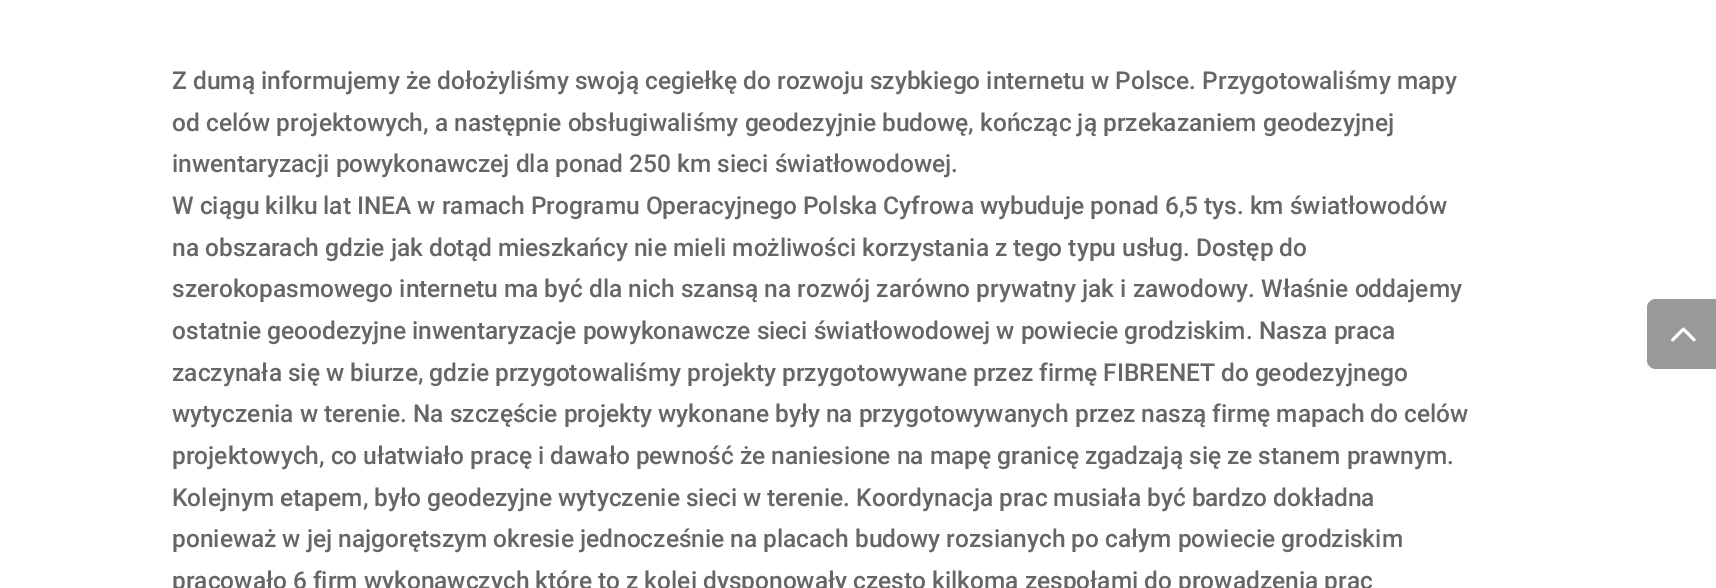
%!PS
<< /PageSize [1716 588] >> setpagedevice
/rgb { dup -16 bitshift 255 div exch dup -8 bitshift 255 and 255 div exch 255 and 255 div setrgbcolor } def
/font { [ exch dup neg 0 0 3 -1 roll 0 0 ] selectfont } def
/text { moveto show } def
/picture { 5 dict begin { /h /w /y /x /name } { exch def } forall
  gsave x y translate w h scale
  w h 8 [w 0 0 h 0 0] name (r) file false 3 colorimage grestore end } def
0 588 translate 1 -1 scale
4 setmiterlimit
/s1 { /Roboto-Medium 24.5 font 16#666666 rgb } def
16#FFFFFF rgb
0 0 1716 588 rectfill
s1
(Z dumą informujemy że dołożyliśmy swoją cegiełkę do rozwoju szybkiego internetu w Polsce. Przygotowaliśmy mapy) 172 89 text
(od celów projektowych, a następnie obsługiwaliśmy geodezyjnie budowę, kończąc ją przekazaniem geodezyjnej) 172 131 text
(inwentaryzacji powykonawczej dla ponad 250 km sieci światłowodowej.) 172 172 text
(W ciągu kilku lat INEA w ramach Programu Operacyjnego Polska Cyfrowa wybuduje ponad 6,5 tys. km światłowodów) 172 214 text
(na obszarach gdzie jak dotąd mieszkańcy nie mieli możliwości korzystania z tego typu usług. Dostęp do) 172 256 text
(szerokopasmowego internetu ma być dla nich szansą na rozwój zarówno prywatny jak i zawodowy. Właśnie oddajemy) 172 297 text
(ostatnie geoodezyjne inwentaryzacje powykonawcze sieci światłowodowej w powiecie grodziskim. Nasza praca) 172 339 text
(zaczynała się w biurze, gdzie przygotowaliśmy projekty przygotowywane przez firmę FIBRENET do geodezyjnego) 172 381 text
(wytyczenia w terenie. Na szczęście projekty wykonane były na przygotowywanych przez naszą firmę mapach do celów) 172 422 text
(projektowych, co ułatwiało pracę i dawało pewność że naniesione na mapę granicę zgadzają się ze stanem prawnym.) 172 464 text
(Kolejnym etapem, było geodezyjne wytyczenie sieci w terenie. Koordynacja prac musiała być bardzo dokładna) 172 506 text
(ponieważ w jej najgorętszym okresie jednocześnie na placach budowy rozsianych po całym powiecie grodziskim) 172 547 text
(pracowało 6 firm wykonawczych które to z kolei dysponowały często kilkoma zespołami do prowadzenia prac) 172 589 text
16#999999 rgb
1656 299 moveto 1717 299 lineto 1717 369 lineto 1656 369 lineto 1651 369 1647 365 1647 360 curveto 1647 308 lineto 1647 303 1651 299 1656 299 curveto closepath fill
(pic1.raw) 1671 327 25 15 picture
showpage
